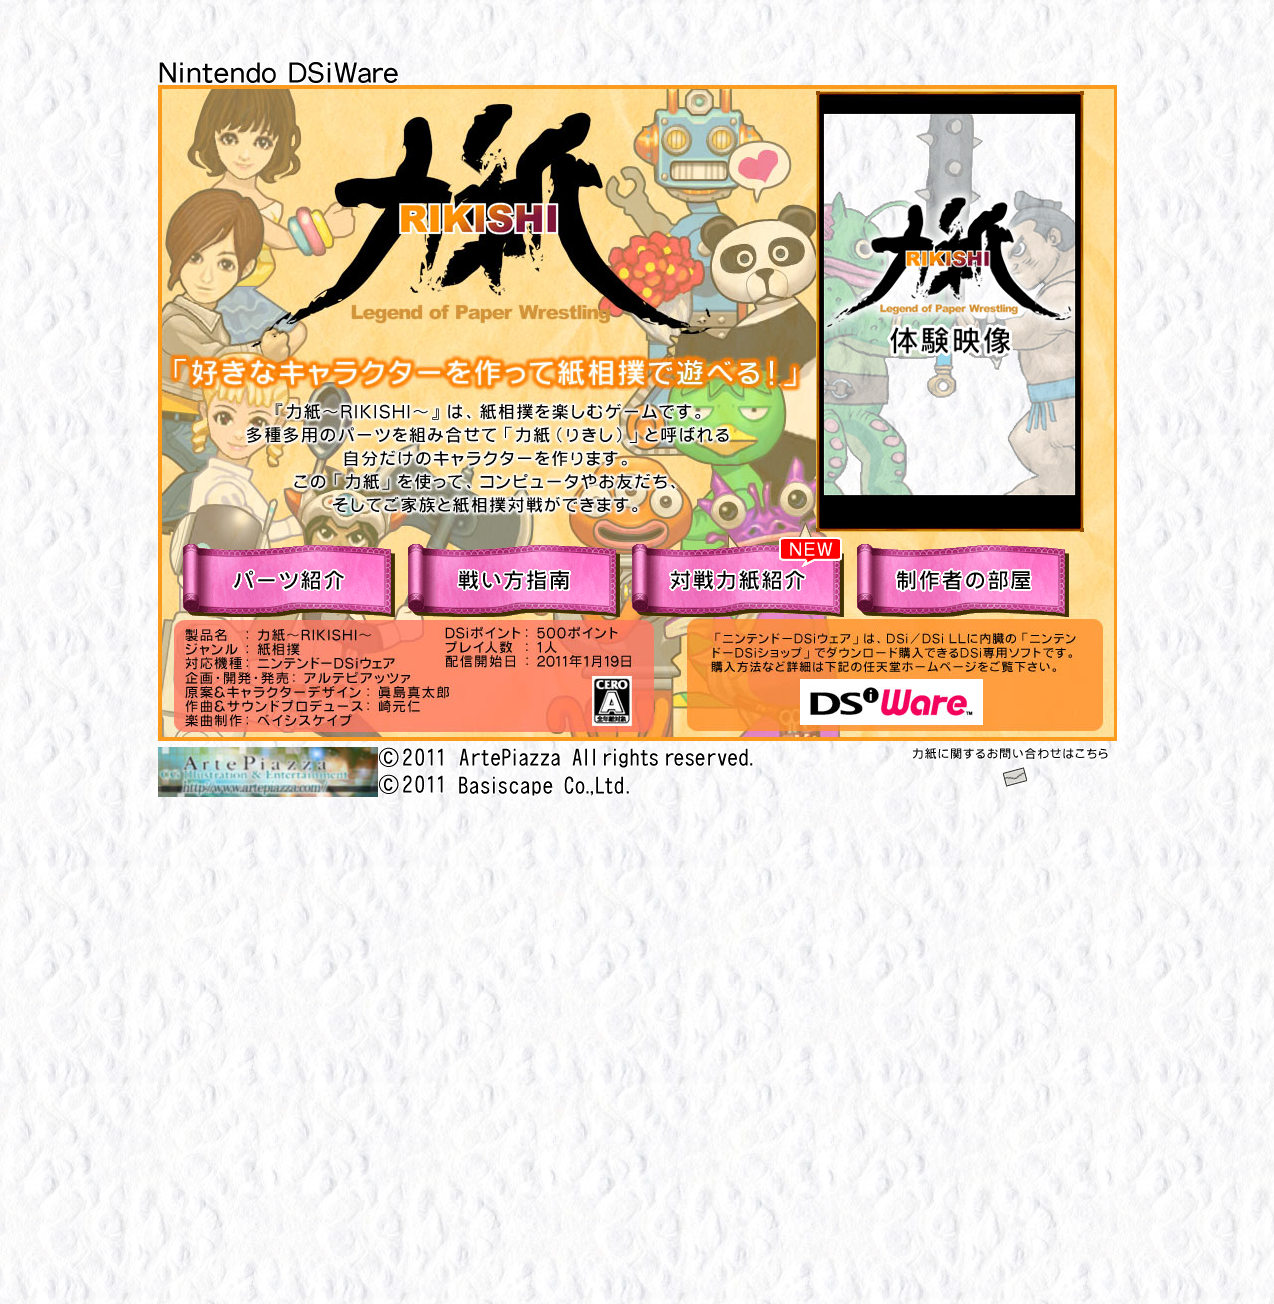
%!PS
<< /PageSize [1274 1304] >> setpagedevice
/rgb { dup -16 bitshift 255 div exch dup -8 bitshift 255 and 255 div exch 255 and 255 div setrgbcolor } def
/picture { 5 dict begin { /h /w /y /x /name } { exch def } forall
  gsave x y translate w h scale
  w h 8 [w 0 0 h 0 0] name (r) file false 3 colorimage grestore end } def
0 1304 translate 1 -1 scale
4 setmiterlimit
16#FFFFFF rgb
0 0 1274 1304 rectfill
(pic1.raw) 0 0 1274 1304 picture
(pic2.raw) 158 61 241 23 picture
(pic3.raw) 158 85 959 656 picture
16#924B00 rgb
816 91 4 4 rectfill
(pic4.raw) 820 91 260 4 picture
1080 91 4 4 rectfill
(pic5.raw) 816 95 4 433 picture
(pic6.raw) 1080 95 4 433 picture
(pic7.raw) 820 113 260 391 picture
816 528 4 4 rectfill
(pic8.raw) 820 528 260 4 picture
1080 528 4 4 rectfill
(pic9.raw) 183 544 212 73 picture
(pic10.raw) 408 544 212 73 picture
(pic11.raw) 632 537 212 80 picture
(pic12.raw) 857 544 212 73 picture
(pic13.raw) 800 679 183 46 picture
(pic14.raw) 158 747 220 50 picture
(pic15.raw) 378 747 375 50 picture
(pic16.raw) 912 747 196 40 picture
showpage
